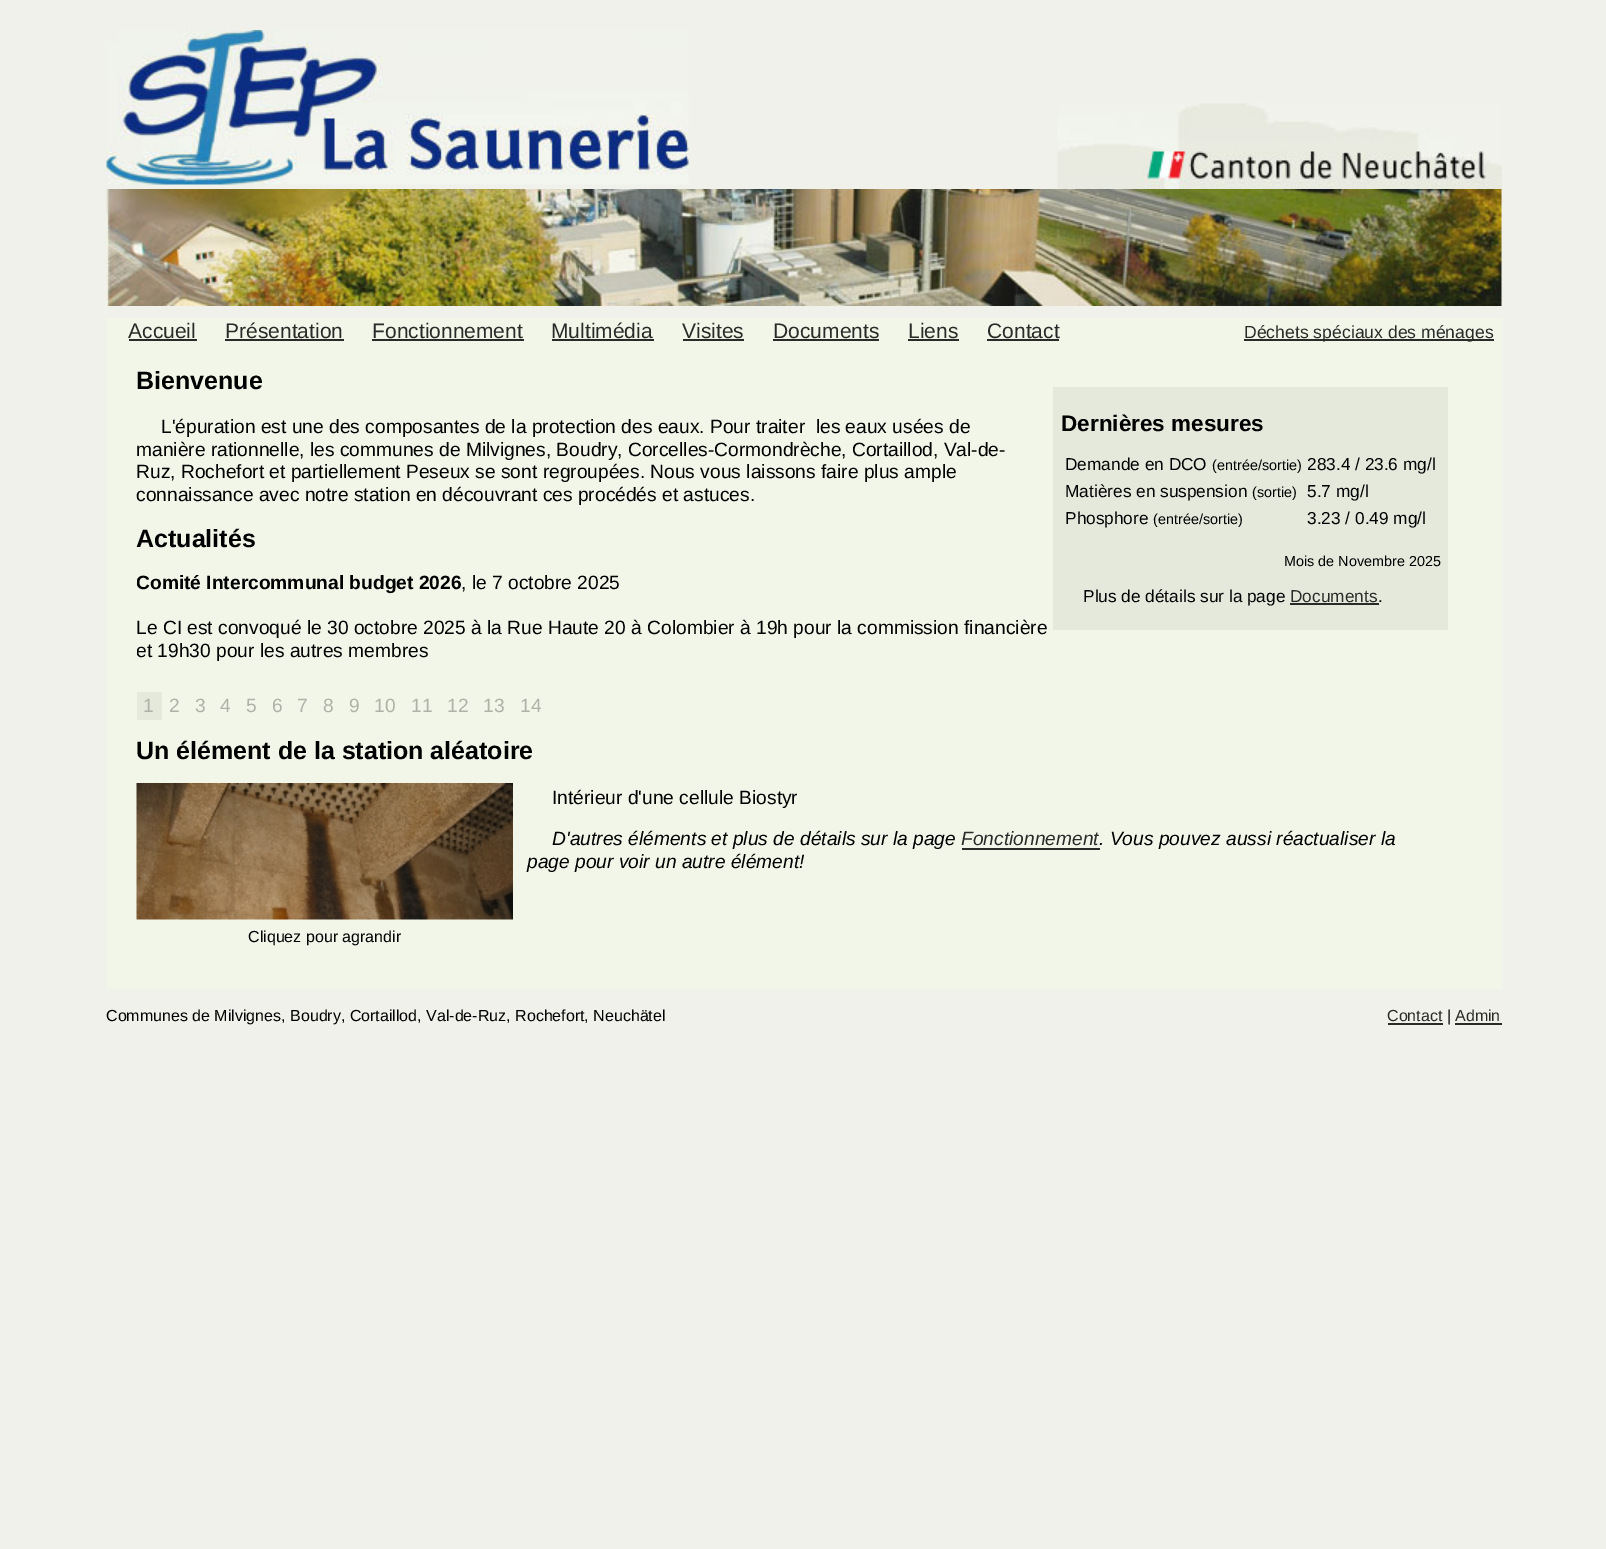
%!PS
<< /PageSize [1606 1549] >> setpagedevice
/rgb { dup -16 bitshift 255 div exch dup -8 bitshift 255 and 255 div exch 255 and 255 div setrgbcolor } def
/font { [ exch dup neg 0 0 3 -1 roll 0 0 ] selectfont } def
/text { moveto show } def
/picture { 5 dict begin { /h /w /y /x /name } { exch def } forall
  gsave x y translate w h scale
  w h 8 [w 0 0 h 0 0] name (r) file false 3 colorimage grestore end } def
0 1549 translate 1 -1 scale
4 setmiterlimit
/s1 { /LiberationSans-Regular 21 font 16#2A2B29 rgb } def
/s2 { /LiberationSans-Regular 17.6 font 16#2A2B29 rgb } def
/s3 { /LiberationSans-Bold 25 font 16#000000 rgb } def
/s4 { /LiberationSans-Regular 19.2 font 16#000000 rgb } def
/s5 { /LiberationSans-Bold 19.2 font 16#000000 rgb } def
/s6 { /LiberationSans-Regular 19.2 font 16#AFB2A6 rgb } def
/s7 { /LiberationSans-Bold 22.5 font 16#000000 rgb } def
/s8 { /LiberationSans-Regular 17.25 font 16#000000 rgb } def
/s9 { /LiberationSans-Regular 14.4 font 16#000000 rgb } def
/s10 { /LiberationSans-Regular 17.25 font 16#2A2B29 rgb } def
/s11 { /LiberationSans-Italic 19.2 font 16#000000 rgb } def
/s12 { /LiberationSans-Italic 19.2 font 16#2A2B29 rgb } def
/s13 { /LiberationSans-Regular 16 font 16#000000 rgb } def
/s14 { /LiberationSans-Regular 16 font 16#2A2B29 rgb } def
16#EFF1EA rgb
0 0 1606 1549 rectfill
(pic1.raw) 106 30 583 155 picture
(pic2.raw) 1057 103 445 86 picture
(pic3.raw) 106 189 1396 117 picture
16#F2F6E9 rgb
107 318 1395 671 rectfill
s1
(Accueil) 128 338 text
129 339 68 2 rectfill
(Présentation) 225 338 text
225 339 119 2 rectfill
(Fonctionnement) 372 338 text
372 339 152 2 rectfill
(Multimédia) 551 338 text
552 339 102 2 rectfill
(Visites) 682 338 text
683 339 61 2 rectfill
(Documents) 773 338 text
773 339 106 2 rectfill
(Liens) 908 338 text
908 339 51 2 rectfill
(Contact) 987 338 text
987 339 72 2 rectfill
1244 339 250 2 rectfill
s2
(Déchets spéciaux des ménages) 1244 338 text
s3
(Bienvenue) 136 389 text
s4
(L'épuration est une des composantes de la protection des eaux. Pour traiter  les eaux usées de) 161 433 text
(manière rationnelle, les communes de Milvignes, Boudry, Corcelles-Cormondrèche, Cortaillod, Val-de-) 136 456 text
(Ruz, Rochefort et partiellement Peseux se sont regroupées. Nous vous laissons faire plus ample) 136 478 text
(connaissance avec notre station en découvrant ces procédés et astuces.) 136 501 text
s3
(Actualités) 136 547 text
gsave
137 572 915 120 rectclip
s5
(Comité Intercommunal budget 2026) 136 589 text
grestore
s4
(, le 7 octobre 2025) 461 589 text
(Le CI est convoqué le 30 octobre 2025 à la Rue Haute 20 à Colombier à 19h pour la commission financière) 136 634 text
gsave
137 572 915 120 rectclip
(et 19h30 pour les autres membres) 136 657 text
grestore
16#E5E9DC rgb
137 692 25 28 rectfill
s6
(1) 143 712 text
(2) 169 712 text
(3) 195 712 text
(4) 220 712 text
(5) 246 712 text
(6) 272 712 text
(7) 297 712 text
(8) 323 712 text
(9) 349 712 text
(10) 374 712 text
(11) 411 712 text
(12) 447 712 text
(13) 483 712 text
(14) 520 712 text
16#E5E9DC rgb
1053 387 395 243 rectfill
s7
(Dernières mesures) 1061 431 text
s8
(Demande en DCO) 1065 470 text
s9
(\(entrée/sortie\)) 1212 470 text
s8
(283.4 / 23.6 mg/l) 1307 470 text
(Matières en suspension) 1065 497 text
s9
(\(sortie\)) 1252 497 text
s8
(5.7 mg/l) 1307 497 text
(Phosphore) 1065 524 text
s9
(\(entrée/sortie\)) 1153 524 text
s8
(3.23 / 0.49 mg/l) 1307 524 text
s9
(Mois de Novembre 2025) 1284 566 text
s8
(Plus de détails sur la page) 1083 602 text
s10
(Documents) 1290 602 text
1290 603 89 2 rectfill
s8
(.) 1378 602 text
s3
(Un élément de la station aléatoire) 136 759 text
s4
(Intérieur d'une cellule Biostyr) 552 804 text
s11
(D'autres éléments et plus de détails sur la page) 552 845 text
s12
(Fonctionnement) 961 845 text
962 848 138 2 rectfill
s11
(. Vous pouvez aussi réactualiser la) 1099 845 text
(page pour voir un autre élément!) 527 868 text
(pic4.raw) 136 783 377 137 picture
s13
(Cliquez pour agrandir) 248 942 text
(Communes de Milvignes, Boudry, Cortaillod, Val-de-Ruz, Rochefort, Neuchätel) 106 1021 text
s14
(Contact) 1387 1021 text
1388 1023 55 2 rectfill
s13
(|) 1447 1021 text
s14
(Admin) 1455 1021 text
1455 1023 47 2 rectfill
showpage
